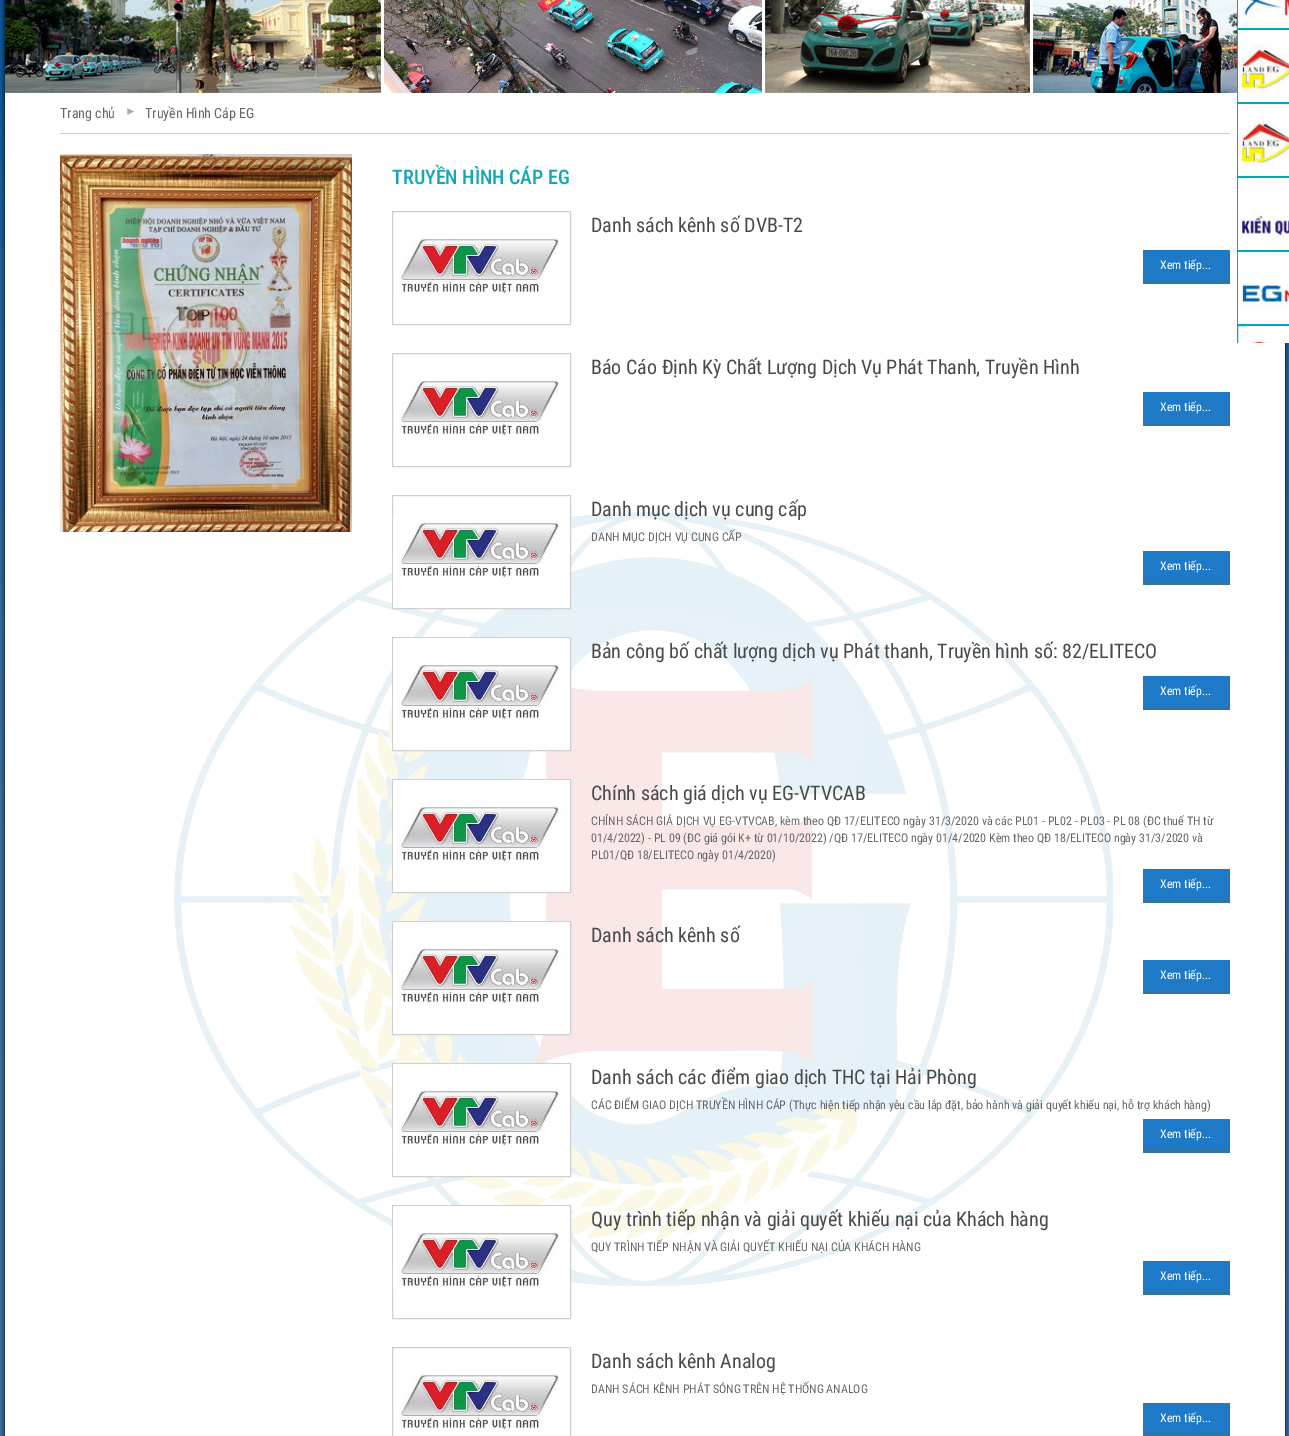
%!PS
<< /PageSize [1289 1436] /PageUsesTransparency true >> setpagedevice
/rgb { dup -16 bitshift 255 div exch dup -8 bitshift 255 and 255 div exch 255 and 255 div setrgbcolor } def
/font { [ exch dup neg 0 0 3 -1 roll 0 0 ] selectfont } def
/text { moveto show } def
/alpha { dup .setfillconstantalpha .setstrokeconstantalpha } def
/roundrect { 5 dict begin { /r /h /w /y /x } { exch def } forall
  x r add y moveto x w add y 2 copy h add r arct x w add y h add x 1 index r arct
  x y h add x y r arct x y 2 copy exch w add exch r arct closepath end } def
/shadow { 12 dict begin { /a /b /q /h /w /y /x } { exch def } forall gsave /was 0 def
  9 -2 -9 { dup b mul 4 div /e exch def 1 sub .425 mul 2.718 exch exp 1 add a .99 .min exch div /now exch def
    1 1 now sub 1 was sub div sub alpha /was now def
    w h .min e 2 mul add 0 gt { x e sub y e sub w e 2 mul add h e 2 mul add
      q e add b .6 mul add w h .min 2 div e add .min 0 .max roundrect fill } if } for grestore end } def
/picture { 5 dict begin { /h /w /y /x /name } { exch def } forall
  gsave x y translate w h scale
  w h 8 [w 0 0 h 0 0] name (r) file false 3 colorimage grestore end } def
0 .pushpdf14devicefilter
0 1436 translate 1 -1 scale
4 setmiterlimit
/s1 { /RobotoCondensed-Regular 14 font 16#666666 rgb } def
/s2 { /RobotoCondensed-Medium 20 font 16#16A6B6 rgb } def
/s3 { /RobotoCondensed-Regular 20 font 16#484949 rgb } def
/s4 { /RobotoCondensed-Regular 12 font 16#FFFFFF rgb } def
/s5 { /RobotoCondensed-Regular 12 font 16#666666 rgb } def
16#FFFFFF rgb
0 0 1289 1436 rectfill
gsave 0 0 moveto 1289 0 lineto 1289 1436 lineto 0 1436 lineto closepath clip newpath 645 1112 translate 911 1824 scale
<< /ShadingType 3 /ColorSpace /DeviceRGB /Coords [0 0 0 0 0 1] /Extend [true true] /Function << /FunctionType 2 /Domain [0 1] /C0 [0.894 0.894 0.894] /C1 [0 0.325 0.631] /N 1 >> >> shfill grestore
16#000000 rgb
5 -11 1280 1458 0 3.5 1 shadow
16#FFFFFF rgb
5 93 1280 1343 rectfill
(pic1.raw) 5 0 1232 93 picture
16#00A7BB rgb
1237.5 -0.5 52 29 rectstroke
(pic2.raw) 1238 0 51 28 picture
1237.5 29.5 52 73 rectstroke
(pic3.raw) 1238 30 51 72 picture
1237.5 103.5 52 73 rectstroke
(pic4.raw) 1238 104 51 72 picture
1237.5 177.5 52 73 rectstroke
(pic5.raw) 1238 178 51 72 picture
1237.5 251.5 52 73 rectstroke
(pic6.raw) 1238 252 51 72 picture
gsave
1237 0 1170 343 rectclip
1237.5 325.5 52 73 rectstroke
grestore
(pic7.raw) 1247 326 42 17 picture
(pic8.raw) 174 512 939 774 picture
16#CDCBCC rgb
60 133 1170 1 rectfill
(pic9.raw) 127 108 7 7 picture
s1
(Trang chủ) 60 118 text
(Truyền Hình Cáp EG) 145 118 text
(pic10.raw) 60 154 292 378 picture
s2
(TRUYỀN HÌNH CÁP EG) 392 184 text
16#D0D0D0 rgb
392.5 211.5 178 113 rectstroke
(pic11.raw) 399 238 163 58 picture
s3
(Danh sách kênh số DVB-T2) 591 232 text
16#1E7AC7 rgb
1143 250 87 31 rectfill
16#327599 rgb
1143 281 87 3 rectfill
s4
(Xem tiếp...) 1160 269 text
16#D0D0D0 rgb
392.5 353.5 178 113 rectstroke
(pic12.raw) 399 380 163 58 picture
s3
(Báo Cáo Định Kỳ Chất Lượng Dịch Vụ Phát Thanh, Truyền Hình) 591 374 text
16#1E7AC7 rgb
1143 392 87 31 rectfill
16#327599 rgb
1143 423 87 3 rectfill
s4
(Xem tiếp...) 1160 411 text
16#D0D0D0 rgb
392.5 495.5 178 113 rectstroke
(pic13.raw) 393 517 177 91 picture
s3
(Danh mục dịch vụ cung cấp) 591 516 text
s5
(DANH MỤC DỊCH VỤ CUNG CẤP) 591 541 text
16#1E7AC7 rgb
1143 551 87 31 rectfill
16#327599 rgb
1143 582 87 3 rectfill
s4
(Xem tiếp...) 1160 570 text
16#D0D0D0 rgb
392.5 637.5 178 113 rectstroke
(pic14.raw) 393 638 177 112 picture
s3
(Bản công bố chất lượng dịch vụ Phát thanh, Truyền hình số: 82/ELITECO) 591 658 text
16#1E7AC7 rgb
1143 676 87 31 rectfill
16#327599 rgb
1143 707 87 3 rectfill
s4
(Xem tiếp...) 1160 695 text
16#D0D0D0 rgb
392.5 779.5 178 113 rectstroke
(pic14.raw) 393 780 177 112 picture
s3
(Chính sách giá dịch vụ EG-VTVCAB) 591 800 text
s5
(CHÍNH SÁCH GIÁ DỊCH VỤ EG-VTVCAB, kèm theo QĐ 17/ELITECO ngày 31/3/2020 và các PL01 - PL02 - PL03 - PL 08 \(ĐC thuế TH từ) 591 825 text
(01/4/2022\) - PL 09 \(ĐC giá gói K+ từ 01/10/2022\) /QĐ 17/ELITECO ngày 01/4/2020 Kèm theo QĐ 18/ELITECO ngày 31/3/2020 và) 591 842 text
(PL01/QĐ 18/ELITECO ngày 01/4/2020\)) 591 859 text
16#1E7AC7 rgb
1143 869 87 31 rectfill
16#327599 rgb
1143 900 87 3 rectfill
s4
(Xem tiếp...) 1160 888 text
16#D0D0D0 rgb
392.5 921.5 178 113 rectstroke
(pic14.raw) 393 922 177 112 picture
s3
(Danh sách kênh số) 591 942 text
16#1E7AC7 rgb
1143 960 87 31 rectfill
16#327599 rgb
1143 991 87 3 rectfill
s4
(Xem tiếp...) 1160 979 text
16#D0D0D0 rgb
392.5 1063.5 178 113 rectstroke
(pic14.raw) 393 1064 177 112 picture
s3
(Danh sách các điểm giao dịch THC tại Hải Phòng) 591 1084 text
s5
(CÁC ĐIỂM GIAO DỊCH TRUYỀN HÌNH CÁP \(Thực hiện tiếp nhận yêu cầu lắp đặt, bảo hành và giải quyết khiếu nại, hỗ trợ khách hàng\)) 591 1109 text
16#1E7AC7 rgb
1143 1119 87 31 rectfill
16#327599 rgb
1143 1150 87 3 rectfill
s4
(Xem tiếp...) 1160 1138 text
16#D0D0D0 rgb
392.5 1205.5 178 113 rectstroke
(pic15.raw) 393 1206 177 84 picture
s3
(Quy trình tiếp nhận và giải quyết khiếu nại của Khách hàng) 591 1226 text
s5
(QUY TRÌNH TIẾP NHẬN VÀ GIẢI QUYẾT KHIẾU NẠI CỦA KHÁCH HÀNG) 591 1251 text
16#1E7AC7 rgb
1143 1261 87 31 rectfill
16#327599 rgb
1143 1292 87 3 rectfill
s4
(Xem tiếp...) 1160 1280 text
16#D0D0D0 rgb
392.5 1347.5 178 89 rectstroke
(pic12.raw) 399 1374 163 58 picture
s3
(Danh sách kênh Analog) 591 1368 text
s5
(DANH SÁCH KÊNH PHÁT SÓNG TRÊN HỆ THỐNG ANALOG) 591 1393 text
16#1E7AC7 rgb
1143 1403 87 31 rectfill
16#327599 rgb
1143 1434 87 2 rectfill
s4
(Xem tiếp...) 1160 1422 text
.poppdf14devicefilter showpage
